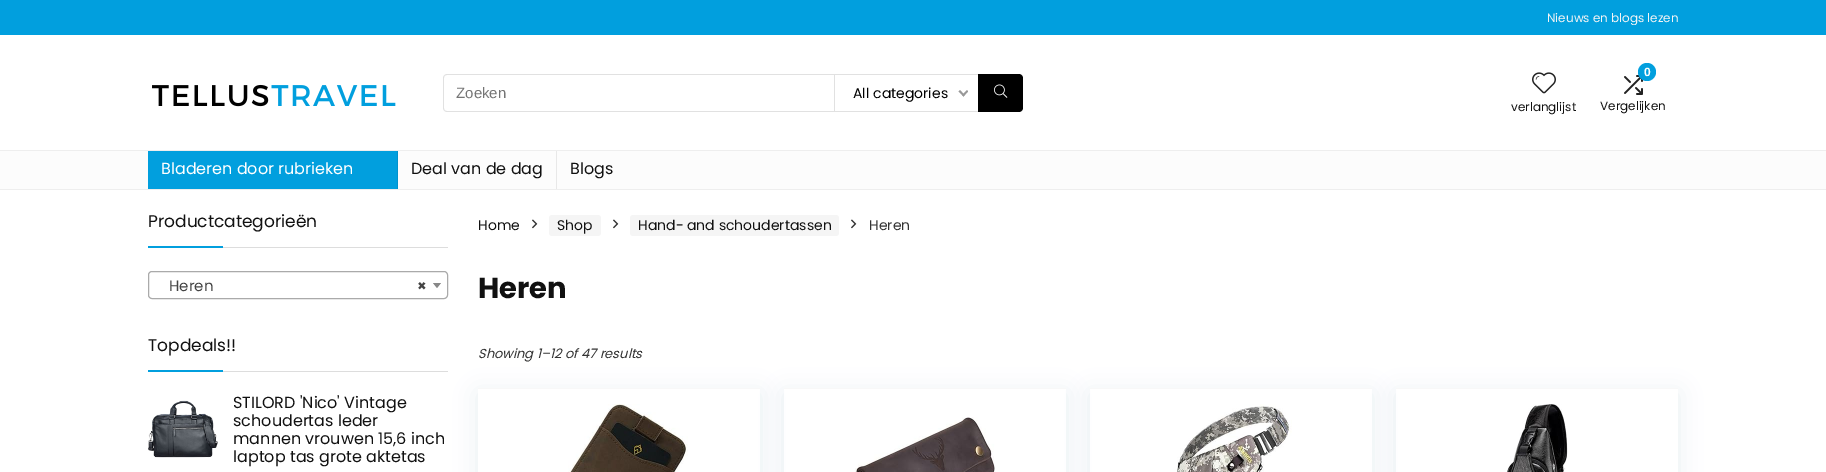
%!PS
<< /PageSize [1826 472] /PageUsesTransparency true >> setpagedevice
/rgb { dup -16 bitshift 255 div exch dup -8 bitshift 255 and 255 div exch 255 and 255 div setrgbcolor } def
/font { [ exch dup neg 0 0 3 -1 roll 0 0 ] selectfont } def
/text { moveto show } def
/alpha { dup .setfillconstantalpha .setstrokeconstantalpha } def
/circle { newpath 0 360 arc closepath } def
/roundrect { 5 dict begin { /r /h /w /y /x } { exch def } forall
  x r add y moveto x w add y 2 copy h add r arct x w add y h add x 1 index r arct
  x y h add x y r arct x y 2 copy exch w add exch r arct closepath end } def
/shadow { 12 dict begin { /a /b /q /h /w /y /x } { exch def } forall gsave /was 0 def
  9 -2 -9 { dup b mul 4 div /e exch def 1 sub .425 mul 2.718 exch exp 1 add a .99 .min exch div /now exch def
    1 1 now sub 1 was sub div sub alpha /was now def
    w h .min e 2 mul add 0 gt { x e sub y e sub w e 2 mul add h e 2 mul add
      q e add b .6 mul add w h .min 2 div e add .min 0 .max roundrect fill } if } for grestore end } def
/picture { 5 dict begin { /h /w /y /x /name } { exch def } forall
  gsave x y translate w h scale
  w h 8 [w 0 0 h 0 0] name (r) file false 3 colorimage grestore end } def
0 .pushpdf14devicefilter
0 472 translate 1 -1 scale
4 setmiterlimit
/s1 { /Poppins-Regular 12 font 16#F4F4F4 rgb } def
/s2 { /LiberationSans-Regular 15 font 16#757575 rgb } def
/s3 { /Poppins-Regular 14 font 16#000000 rgb } def
/s4 { /Poppins-Regular 12 font 16#111111 rgb } def
/s5 { /LiberationSans-Bold 12 font 16#FFFFFF rgb } def
/s6 { /Poppins-Regular 16 font 16#FFFFFF rgb } def
/s7 { /Poppins-Regular 16 font 16#111111 rgb } def
/s8 { /Poppins-Regular 17 font 16#111111 rgb } def
/s9 { /Poppins-Regular 15 font 16#444444 rgb } def
/s10 { /Poppins-Bold 15 font 16#444444 rgb } def
/s11 { /Poppins-Regular 14 font 16#111111 rgb } def
/s12 { /Poppins-Regular 14 font 16#333333 rgb } def
/s13 { /Poppins-Bold 29 font 16#111111 rgb } def
/s14 { /Poppins-Italic 13 font 16#333333 rgb } def
16#FFFFFF rgb
0 0 1826 472 rectfill
16#019FDE rgb
0 0 1826 35 rectfill
gsave
1547 10 131 15 rectclip
s1
(Nieuws en blogs lezen) 1547 22 text
grestore
(pic1.raw) 152 84 244 23 picture
16#E1E1E1 rgb
447 74 moveto 834 74 lineto 834 112 lineto 447 112 lineto 445 112 443 110 443 108 curveto 443 78 lineto 443 76 445 74 447 74 curveto closepath 447 75 moveto 834 75 lineto 834 111 lineto 447 111 lineto 445 111 444 110 444 108 curveto 444 78 lineto 444 76 445 75 447 75 curveto closepath eofill
s2
(Zoeken) 456 98 text
16#E1E1E1 rgb
834 74 144 1 rectfill
834 111 144 1 rectfill
834 74 1 38 rectfill
s3
(All categories) 853 98 text
16#999999 rgb
967 90 moveto 968 91.5 lineto 963.5 96.5 lineto 962 95 lineto closepath fill
960 90 moveto 964.5 95 lineto 963.5 96.5 lineto 958.5 91.5 lineto closepath fill
16#000000 rgb
978 74 moveto 1019 74 lineto 1021 74 1023 76 1023 78 curveto 1023 108 lineto 1023 110 1021 112 1019 112 curveto 978 112 lineto closepath fill
(pic2.raw) 994 84 14 14 picture
(pic3.raw) 1532 72 24 22 picture
s4
(verlanglijst) 1511 111 text
(pic4.raw) 1624 75 19 20 picture
16#019FDE rgb
1647 72 9 circle fill
s5
(0) 1644 76 text
s4
(Vergelijken) 1600 110 text
16#FCFCFC rgb
0 151 1826 38 rectfill
16#EEEEEE rgb
0 150 1826 1 rectfill
0 189 1826 1 rectfill
16#019FDE rgb
148 151 249 38 rectfill
16#0192CC rgb
397 151 1 38 rectfill
s6
(Bladeren door rubrieken) 161 174 text
16#E8E8E8 rgb
556 151 1 38 rectfill
s7
(Deal van de dag) 411 174 text
(Blogs) 570 174 text
16#DDDDDD rgb
223 247 225 1 rectfill
s8
(Productcategorieën) 148 227 text
16#019FDE rgb
148 246 75 2 rectfill
16#AAAAAA rgb
148.5 271.5 299 27 3.5 roundrect stroke
s9
(Heren) 169 291 text
s10
(×) 417 291 text
16#888888 rgb
433 283 moveto 441 283 lineto 437 288 lineto closepath fill
16#DDDDDD rgb
223 371 225 1 rectfill
s8
(Topdeals!!) 148 351 text
16#019FDE rgb
148 370 75 2 rectfill
(pic5.raw) 148 400 70 58 picture
s7
(STILORD 'Nico' Vintage) 233 408 text
(schoudertas leder) 233 426 text
(mannen vrouwen 15,6 inch) 233 444 text
(laptop tas grote aktetas) 233 462 text
s11
(Home) 478 230 text
(pic6.raw) 532 219 6 10 picture
16#F5F5F5 rgb
549 215 52 21 3 roundrect fill
s11
(Shop) 557 230 text
(pic6.raw) 613 219 6 10 picture
16#F5F5F5 rgb
630 215 209 21 3 roundrect fill
s11
(Hand- and schoudertassen) 638 230 text
(pic6.raw) 851 219 6 10 picture
s12
(Heren) 869 230 text
s13
(Heren) 478 298 text
s14
(Showing 1–12 of 47 results) 478 358 text
gsave
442 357 moveto 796 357 lineto 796 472 lineto 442 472 lineto closepath 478 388 moveto 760 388 lineto 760 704 lineto 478 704 lineto closepath eoclip newpath
16#BCCFDB rgb
478 393 282 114 0 11.5 0.35 shadow
grestore
16#F8F8F8 rgb
478 388 282 1 rectfill
(pic7.raw) 568 404 120 68 picture
gsave
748 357 moveto 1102 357 lineto 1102 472 lineto 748 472 lineto closepath 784 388 moveto 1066 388 lineto 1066 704 lineto 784 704 lineto closepath eoclip newpath
16#BCCFDB rgb
784 393 282 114 0 11.5 0.35 shadow
grestore
784 388 282 1 rectfill
(pic8.raw) 855 417 140 55 picture
gsave
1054 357 moveto 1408 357 lineto 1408 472 lineto 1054 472 lineto closepath 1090 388 moveto 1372 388 lineto 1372 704 lineto 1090 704 lineto closepath eoclip newpath
16#BCCFDB rgb
1090 393 282 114 0 11.5 0.35 shadow
grestore
1090 388 282 1 rectfill
(pic9.raw) 1177 404 115 68 picture
gsave
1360 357 moveto 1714 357 lineto 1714 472 lineto 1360 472 lineto closepath 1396 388 moveto 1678 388 lineto 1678 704 lineto 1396 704 lineto closepath eoclip newpath
16#BCCFDB rgb
1396 393 282 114 0 11.5 0.35 shadow
grestore
1396 388 282 1 rectfill
(pic10.raw) 1507 404 61 68 picture
.poppdf14devicefilter showpage
